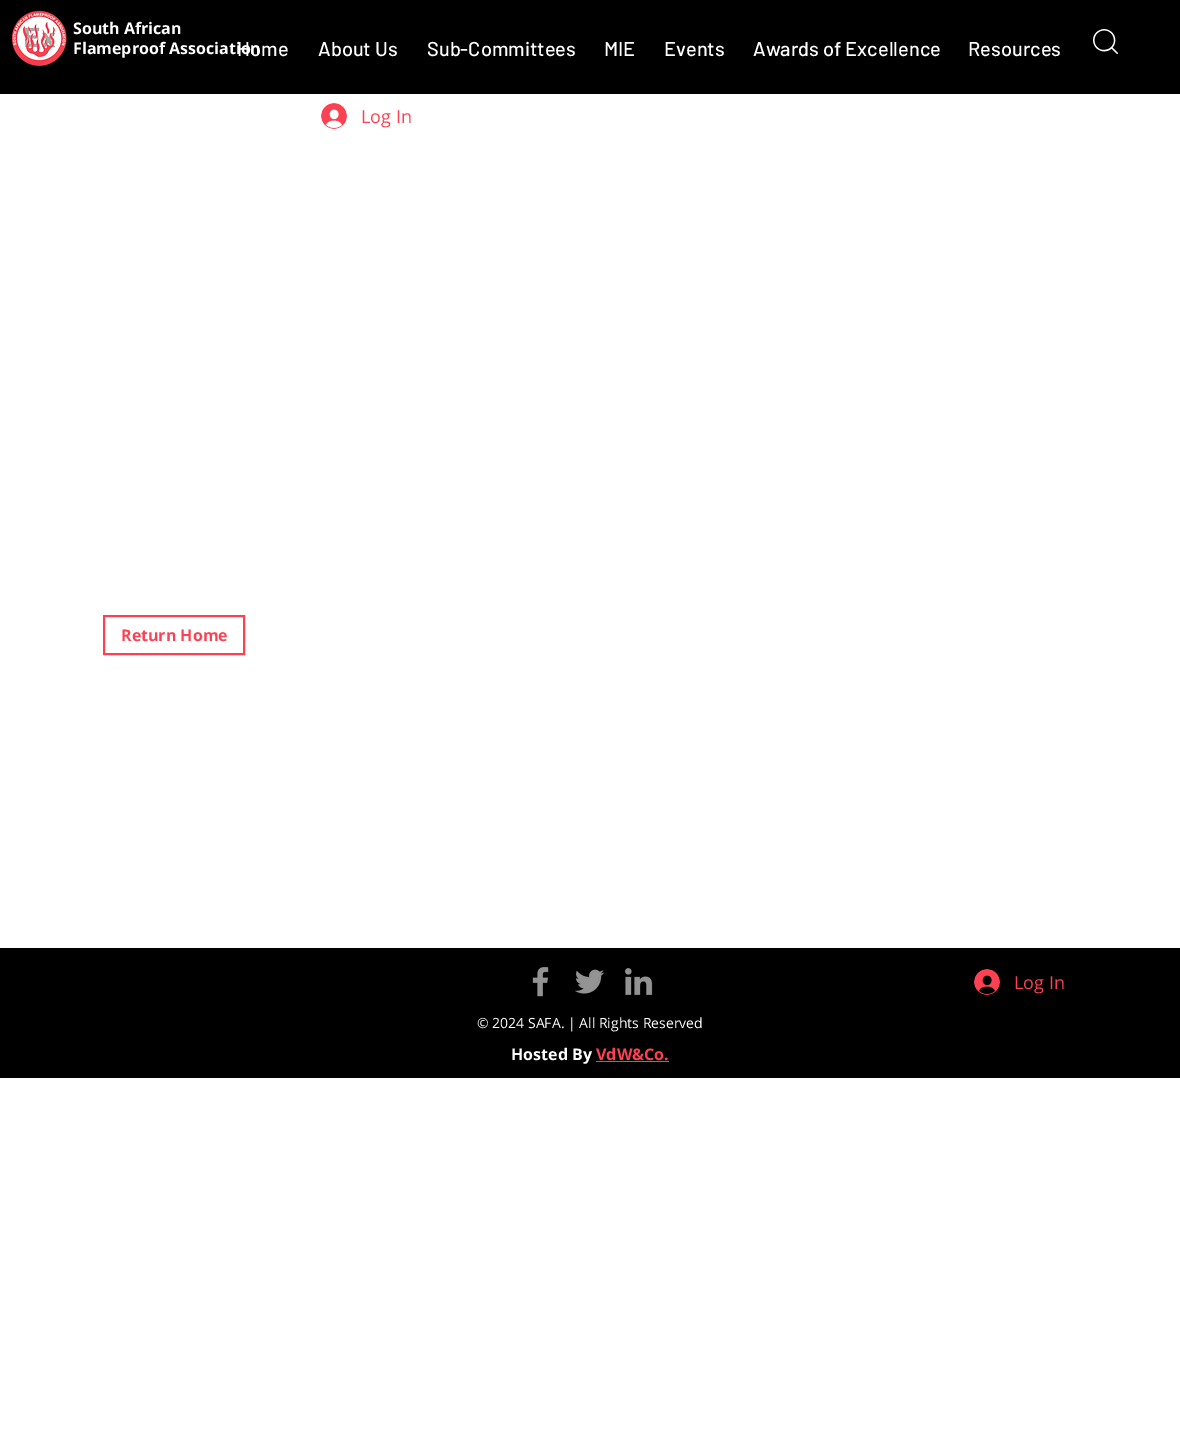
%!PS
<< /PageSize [1180 1443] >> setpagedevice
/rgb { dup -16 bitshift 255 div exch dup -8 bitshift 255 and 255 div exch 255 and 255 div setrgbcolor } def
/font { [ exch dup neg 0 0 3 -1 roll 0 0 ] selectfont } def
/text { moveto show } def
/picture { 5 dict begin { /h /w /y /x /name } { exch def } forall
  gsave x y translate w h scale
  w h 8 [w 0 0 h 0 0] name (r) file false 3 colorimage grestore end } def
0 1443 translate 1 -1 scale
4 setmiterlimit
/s1 { /OpenSans-Bold 16 font 16#FFFFFF rgb } def
/s2 { /Barlow-Medium 20 font 16#FFFFFF rgb } def
/s3 { /OpenSans-Regular 18 font 16#FC4252 rgb } def
/s4 { /OpenSans-Bold 16 font 16#FC4252 rgb } def
/s5 { /OpenSans-Regular 14 font 16#FFFFFF rgb } def
16#FFFFFF rgb
0 0 1180 1443 rectfill
16#000000 rgb
0 0 1180 94 rectfill
(pic1.raw) 11 10 56 56 picture
s1
(South African) 73 34 text
(Flameproof Association) 73 54 text
s2
(Home) 237 56 text
(About Us) 318 56 text
(Sub-Committees) 427 56 text
(MIE) 604 56 text
(Events) 664 56 text
(Awards of Excellence) 753 56 text
(Resources) 968 56 text
(pic2.raw) 1093 29 25 25 picture
(pic3.raw) 321 103 26 26 picture
s3
(Log In) 361 123 text
2 setlinewidth
104 616 140 38 rectstroke
s4
(Return Home) 121 641 text
16#000000 rgb
0 948 1180 130 rectfill
(pic4.raw) 532 967 17 30 picture
(pic5.raw) 575 969 30 25 picture
(pic6.raw) 624 968 29 28 picture
(pic7.raw) 974 969 26 26 picture
s3
(Log In) 1014 989 text
s5
(© 2024 SAFA. | All Rights Reserved) 477 1028 text
s1
(Hosted By) 511 1060 text
s4
(VdW&Co.) 596 1060 text
596 1061 73 1 rectfill
showpage
